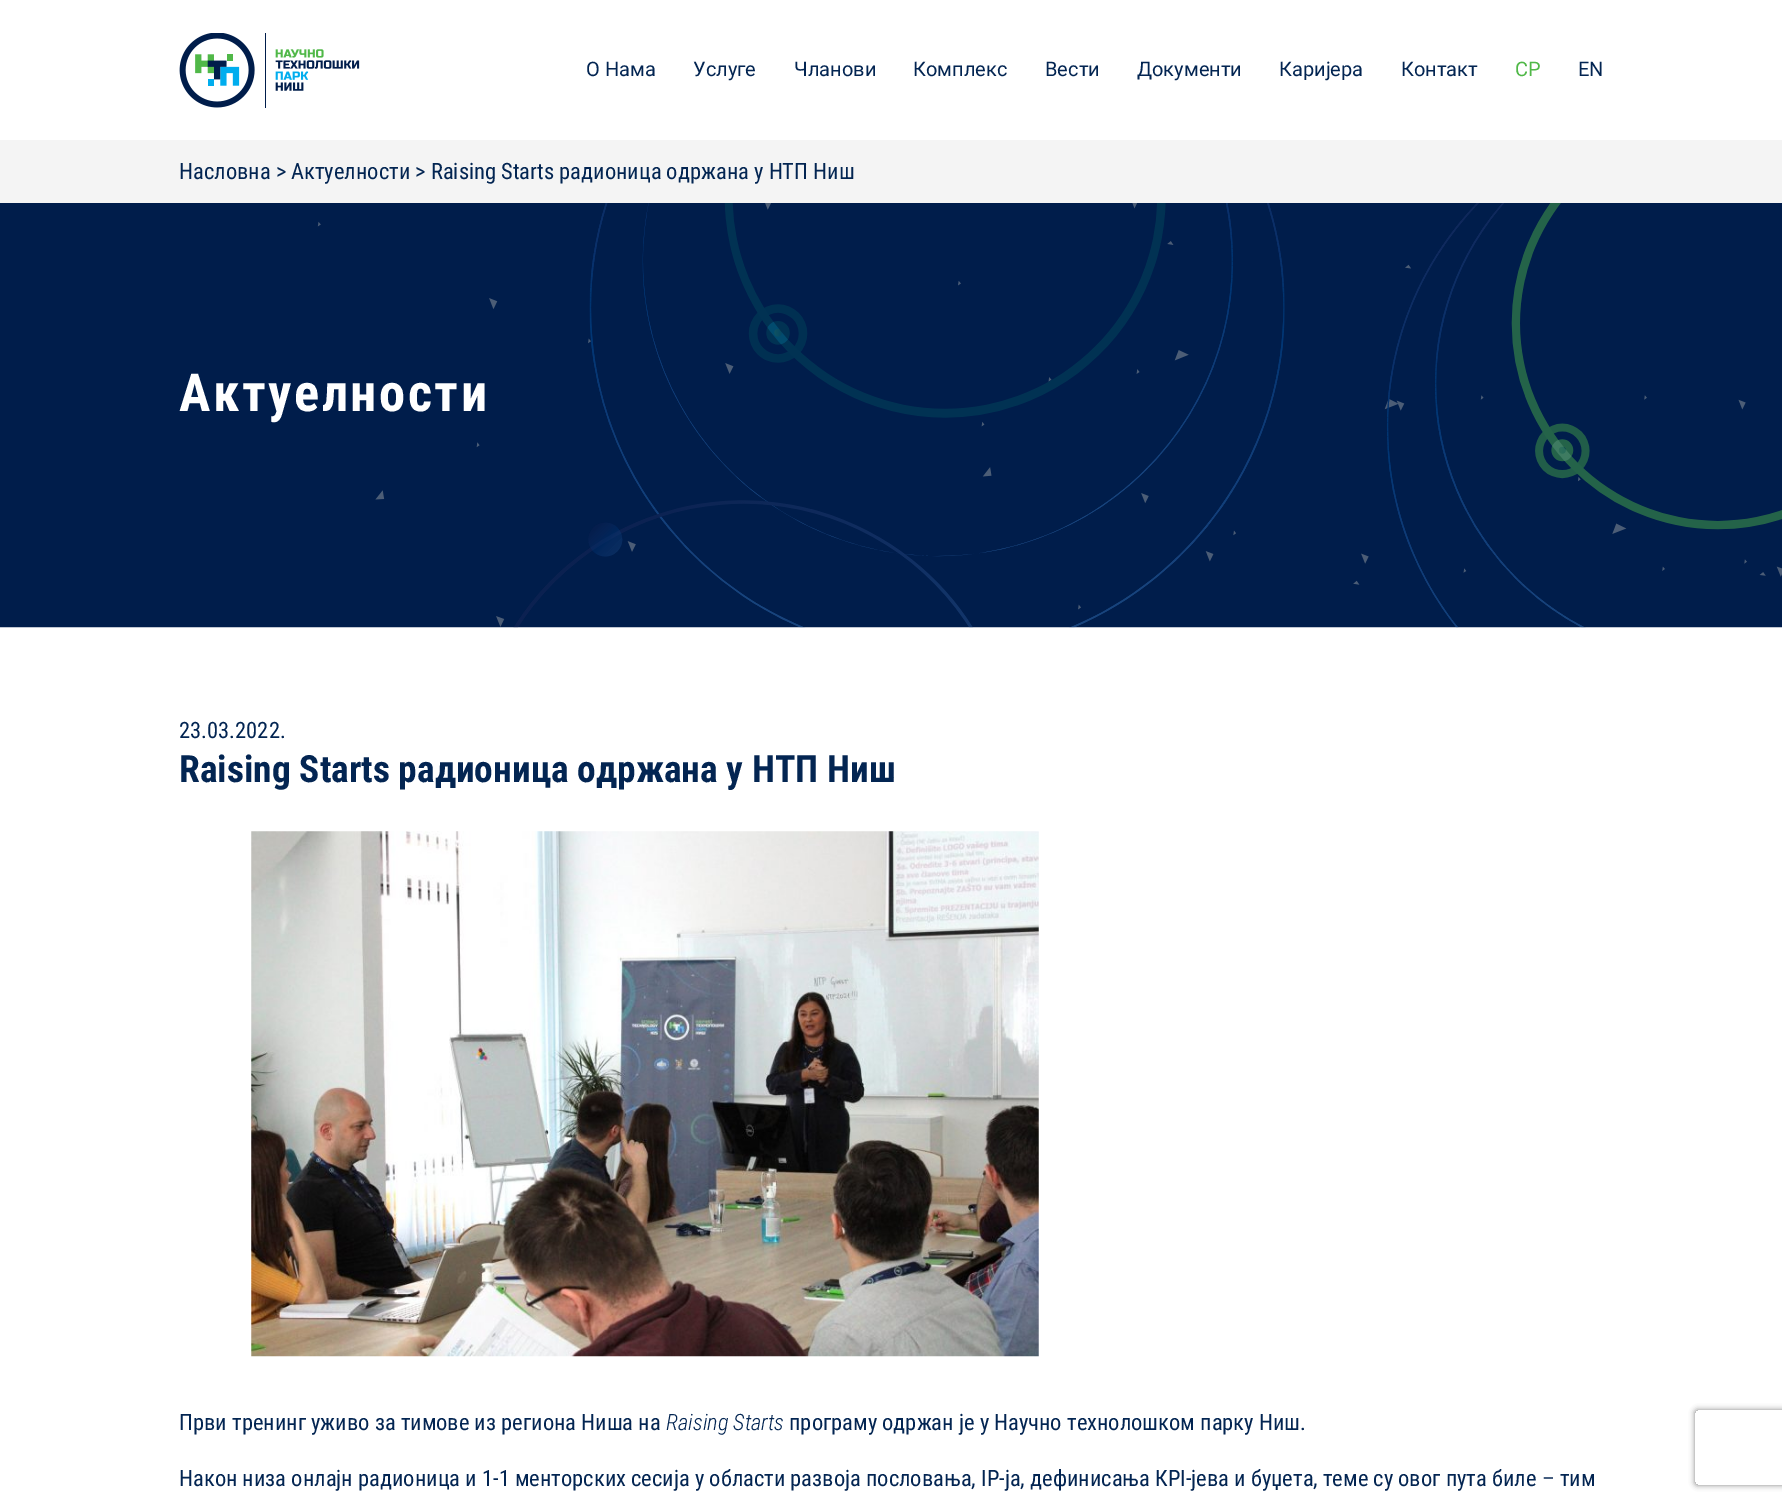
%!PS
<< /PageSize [1782 1502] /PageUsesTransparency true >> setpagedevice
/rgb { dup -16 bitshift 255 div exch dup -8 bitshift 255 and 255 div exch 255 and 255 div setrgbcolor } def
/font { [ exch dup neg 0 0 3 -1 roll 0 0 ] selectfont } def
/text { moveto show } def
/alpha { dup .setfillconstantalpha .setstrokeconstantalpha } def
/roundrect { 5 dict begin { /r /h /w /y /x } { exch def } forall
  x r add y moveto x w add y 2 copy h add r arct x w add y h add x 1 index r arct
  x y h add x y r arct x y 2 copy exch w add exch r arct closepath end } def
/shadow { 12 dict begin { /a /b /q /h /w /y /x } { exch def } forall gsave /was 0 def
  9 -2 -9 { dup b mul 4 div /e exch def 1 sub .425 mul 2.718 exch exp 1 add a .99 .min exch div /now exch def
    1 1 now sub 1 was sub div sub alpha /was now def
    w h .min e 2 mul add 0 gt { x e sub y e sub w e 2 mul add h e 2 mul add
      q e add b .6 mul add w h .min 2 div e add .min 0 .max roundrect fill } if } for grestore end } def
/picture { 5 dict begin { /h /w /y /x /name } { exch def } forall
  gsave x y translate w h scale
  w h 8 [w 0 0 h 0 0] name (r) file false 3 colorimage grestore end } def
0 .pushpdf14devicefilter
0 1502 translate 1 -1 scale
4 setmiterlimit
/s1 { /Roboto-Regular 20 font 16#032552 rgb } def
/s2 { /Roboto-Regular 20 font 16#50B848 rgb } def
/s3 { /RobotoCondensed-Regular 22.5 font 16#032552 rgb } def
/s4 { /RobotoCondensed-Bold 37.5 font 16#032552 rgb } def
/s5 { /RobotoCondensed-LightItalic 22.5 font 16#032552 rgb } def
16#FFFFFF rgb
0 0 1782 1502 rectfill
(pic1.raw) 179 33 181 75 picture
s1
(О Нама) 586 76 text
(Услуге) 693 76 text
(Чланови) 794 76 text
(Комплекс) 913 76 text
(Вести) 1045 76 text
(Документи) 1137 76 text
(Каријера) 1279 76 text
(Контакт) 1401 76 text
s2
(CP) 1515 76 text
s1
(EN) 1578 76 text
16#F4F4F4 rgb
0 140 1782 63 rectfill
s3
(Насловна > Актуелности > Raising Starts радионица одржана у НТП Ниш) 179 179 text
(pic2.raw) 0 203 1782 425 picture
/RobotoCondensed-Bold 52.5 font
16#FFFFFF rgb
179 411 moveto 2.5 0 (Актуелности) ashow
s3
(23.03.2022.) 179 738 text
s4
(Raising Starts радионица одржана у НТП Ниш) 179 782 text
(pic3.raw) 251 831 788 526 picture
s3
(Први тренинг уживо за тимове из региона Ниша на) 179 1430 text
s5
(Raising Starts) 666 1430 text
s3
(програму одржан је у Научно технолошком парку Ниш.) 789 1430 text
(Након низа онлајн радионица и 1-1 менторских сесија у области развоја пословања, IP-ја, дефинисања КPI-јева и буџета, теме су овог пута биле – тим) 179 1486 text
gsave
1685 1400 moveto 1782 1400 lineto 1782 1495 lineto 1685 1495 lineto closepath 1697.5 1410 moveto 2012.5 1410 lineto 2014 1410 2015 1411 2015 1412.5 curveto 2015 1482.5 lineto 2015 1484 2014 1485 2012.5 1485 curveto 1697.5 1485 lineto 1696 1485 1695 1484 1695 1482.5 curveto 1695 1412.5 lineto 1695 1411 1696 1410 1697.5 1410 curveto closepath eoclip newpath
16#808080 rgb
1695 1410 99 75 2.5 3 1 shadow
grestore
.poppdf14devicefilter showpage
